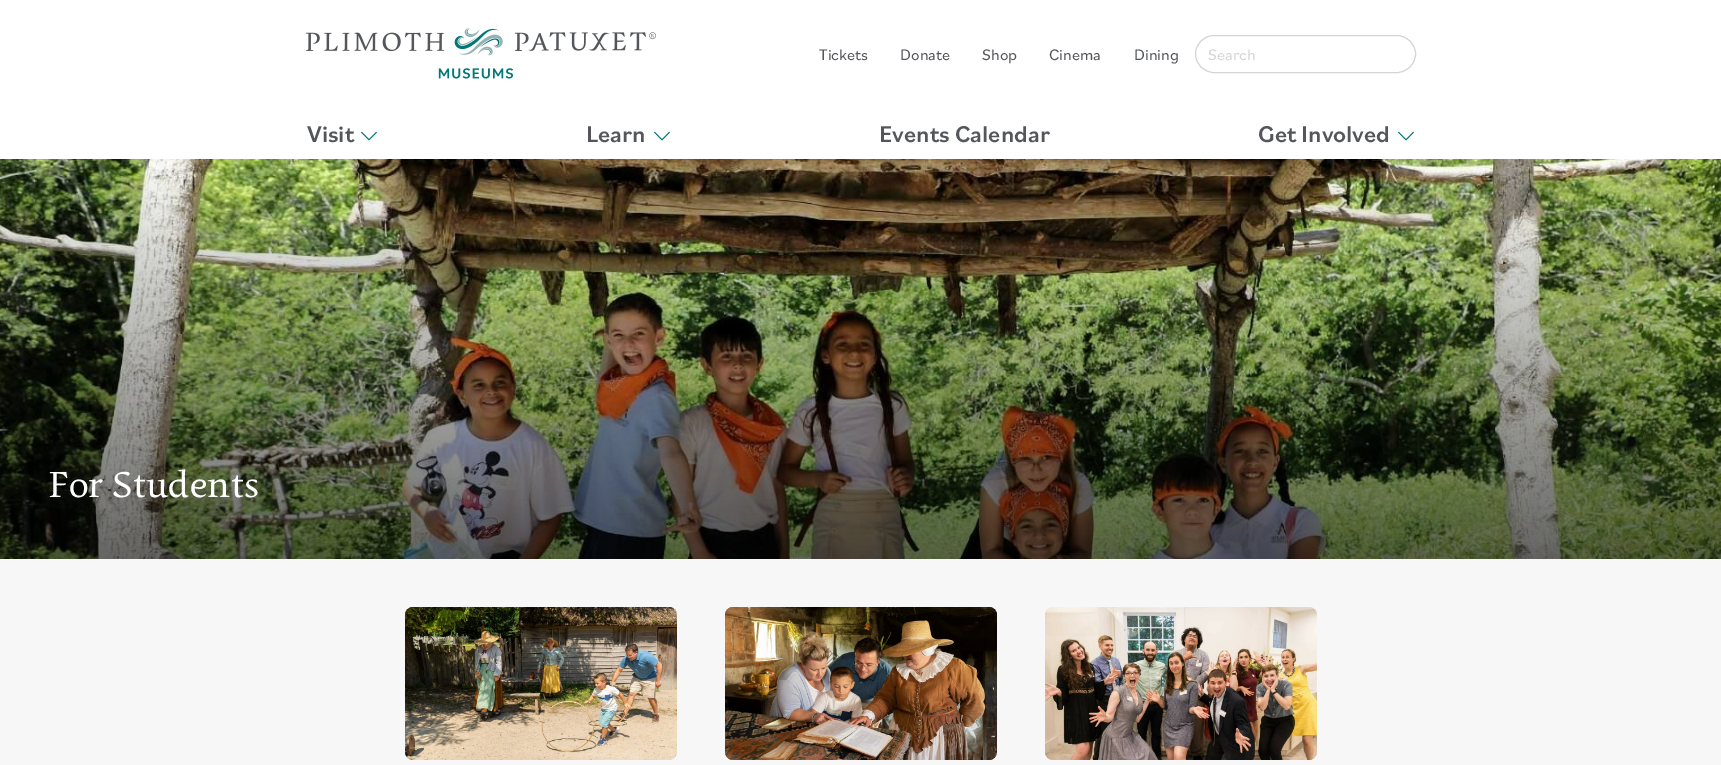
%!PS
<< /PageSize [1721 765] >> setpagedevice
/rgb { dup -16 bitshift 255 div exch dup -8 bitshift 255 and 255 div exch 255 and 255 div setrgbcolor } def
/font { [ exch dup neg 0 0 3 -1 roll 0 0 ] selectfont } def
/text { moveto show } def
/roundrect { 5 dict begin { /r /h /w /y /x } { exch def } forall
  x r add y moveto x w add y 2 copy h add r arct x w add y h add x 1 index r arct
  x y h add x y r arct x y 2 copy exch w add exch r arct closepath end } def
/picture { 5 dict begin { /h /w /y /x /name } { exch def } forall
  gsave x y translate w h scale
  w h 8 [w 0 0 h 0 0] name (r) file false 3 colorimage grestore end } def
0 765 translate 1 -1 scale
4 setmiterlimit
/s1 { /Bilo-Regular 16 font 16#54565A rgb } def
/s2 { /Bilo-Regular 16 font 16#D4D5D6 rgb } def
/s3 { /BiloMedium-Medium 24 font 16#54565A rgb } def
/s4 { /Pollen-Regular 40 font 16#FFFFFF rgb } def
16#F7F7F8 rgb
0 0 1721 765 rectfill
16#FFFFFF rgb
0 0 1721 159 rectfill
(pic1.raw) 306 28 350 51 picture
s1
(Tickets) 819 60 text
(Donate) 900 60 text
(Shop) 982 60 text
(Cinema) 1049 60 text
(Dining) 1134 60 text
16#D4D5D6 rgb
1195.5 35.5 220 37 18.5 roundrect stroke
(Search) 1208 60 text
s3
(Visit) 307 142 text
(pic2.raw) 361 131 16 10 picture
(Learn) 586 142 text
(pic2.raw) 654 131 16 10 picture
(Events Calendar) 879 142 text
(Get Involved) 1258 142 text
(pic2.raw) 1398 131 16 10 picture
(pic3.raw) 0 159 1721 400 picture
s4
(For Students) 48 497 text
(pic4.raw) 405 607 272 153 picture
(pic5.raw) 405 607 272 153 picture
(pic6.raw) 725 607 272 153 picture
(pic7.raw) 725 607 272 153 picture
(pic8.raw) 1045 607 272 153 picture
(pic9.raw) 1045 607 272 153 picture
showpage
